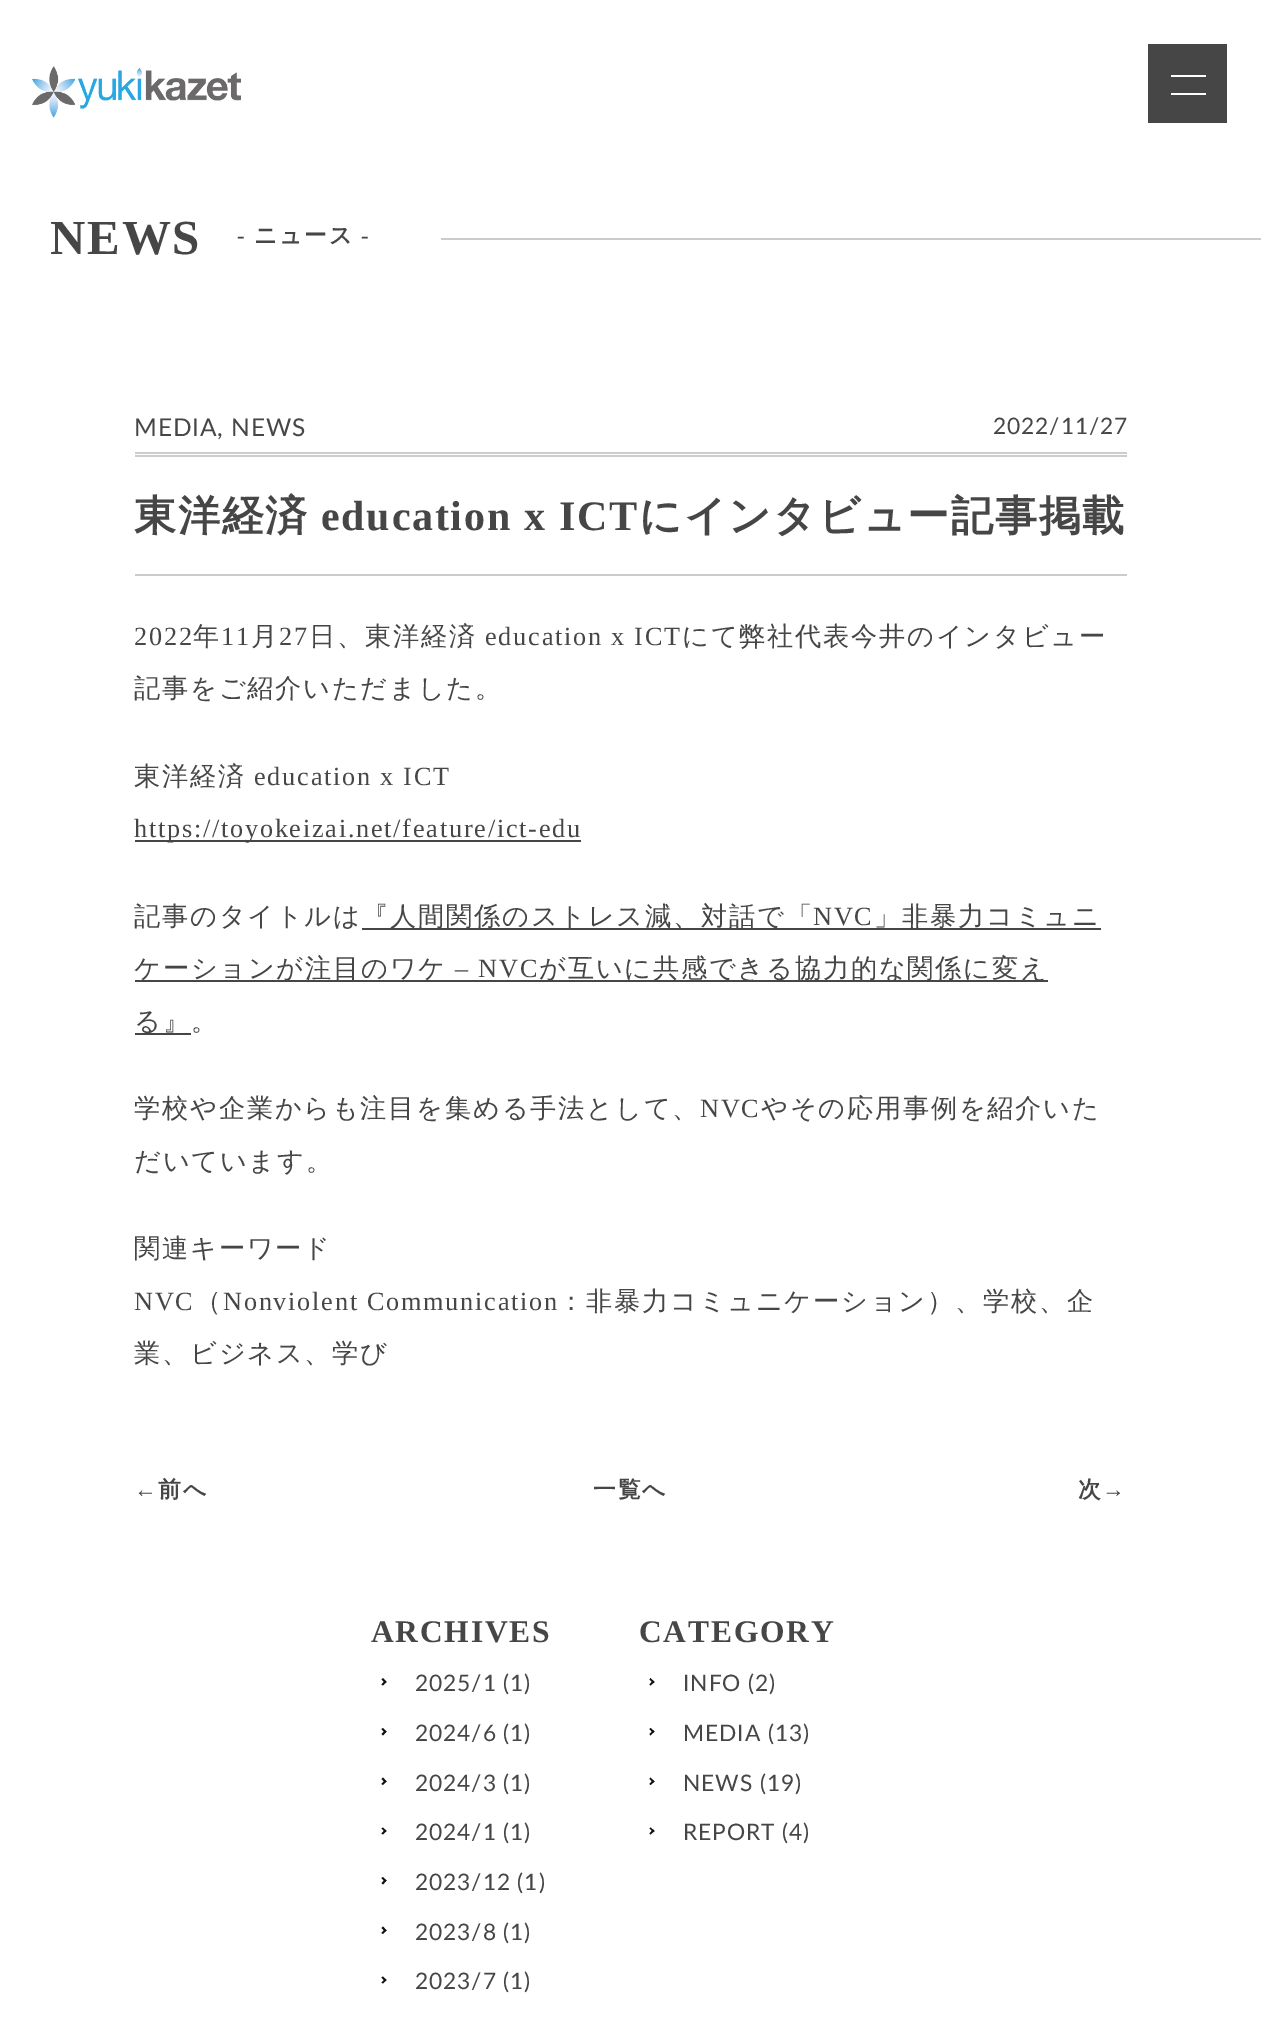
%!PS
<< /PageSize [1261 2022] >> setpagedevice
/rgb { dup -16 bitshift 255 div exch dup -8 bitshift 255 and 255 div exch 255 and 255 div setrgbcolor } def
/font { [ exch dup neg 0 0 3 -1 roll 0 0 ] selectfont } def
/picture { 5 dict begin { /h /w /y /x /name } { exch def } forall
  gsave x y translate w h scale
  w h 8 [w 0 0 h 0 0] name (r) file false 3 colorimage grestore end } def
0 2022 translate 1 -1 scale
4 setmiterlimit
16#FFFFFF rgb
0 0 1261 2022 rectfill
(pic1.raw) 32 66 209 52 picture
16#464646 rgb
1148 44 79 79 rectfill
16#FFFFFF rgb
1171 75 35 2 rectfill
1171 93 35 2 rectfill
/LiberationSerif-Bold 49 font
16#464646 rgb
50 254 moveto 1.75 0 (NEWS) ashow
/LiberationSerif-Bold 22.75 font
237 243 moveto 1.75 0 (-) ashow
/WenQuanYiZenHei-Bold 22.75 font
254 243 moveto 1.75 0 (ニュース) ashow
/LiberationSerif-Bold 22.75 font
361 243 moveto 1.75 0 (-) ashow
/Lato-Regular 24.5 font
134 436 moveto 0.9 0 (MEDIA, NEWS) ashow
/Lato-Regular 22.75 font
993 434 moveto 0.9 0 (2022/11/27) ashow
16#CCCCCC rgb
135 452 992 2 rectfill
135 455 992 2 rectfill
135 574 992 2 rectfill
/WenQuanYiZenHei-Bold 42 font
16#464646 rgb
134 530 moveto 1.75 0 (東洋経済) ashow
/LiberationSerif-Bold 42 font
321 530 moveto 1.75 0 (education x ICT) ashow
/WenQuanYiZenHei-Bold 42 font
639 530 moveto 1.75 0 (にインタビュー記事掲載) ashow
/LiberationSerif-Regular 26.25 font
134 645 moveto 1.75 0 (2022) ashow
/WenQuanYiZenHei-Medium 26.25 font
193 645 moveto 1.75 0 (年) ashow
/LiberationSerif-Regular 26.25 font
221 645 moveto 1.75 0 (11) ashow
/WenQuanYiZenHei-Medium 26.25 font
251 645 moveto 1.75 0 (月) ashow
/LiberationSerif-Regular 26.25 font
279 645 moveto 1.75 0 (27) ashow
/WenQuanYiZenHei-Medium 26.25 font
309 645 moveto 1.75 0 (日、東洋経済) ashow
/LiberationSerif-Regular 26.25 font
485 645 moveto 1.75 0 (education x ICT) ashow
/WenQuanYiZenHei-Medium 26.25 font
682 645 moveto 1.75 0 (にて弊社代表今井のインタビュー) ashow
134 697 moveto 1.75 0 (記事をご紹介いただました。) ashow
134 785 moveto 1.75 0 (東洋経済) ashow
/LiberationSerif-Regular 26.25 font
254 785 moveto 1.75 0 (education x ICT) ashow
135 840 446 2 rectfill
134 837 moveto 1.75 0 (https://toyokeizai.net/feature/ict-edu) ashow
/WenQuanYiZenHei-Medium 26.25 font
134 925 moveto 1.75 0 (記事のタイトルは) ashow
362 928 739 2 rectfill
362 925 moveto 1.75 0 (『人間関係のストレス減、対話で「) ashow
/LiberationSerif-Regular 26.25 font
813 925 moveto 1.75 0 (NVC) ashow
/WenQuanYiZenHei-Medium 26.25 font
874 925 moveto 1.75 0 (」非暴力コミュニ) ashow
135 980 913 2 rectfill
134 977 moveto 1.75 0 (ケーションが注目のワケ) ashow
/LiberationSerif-Regular 26.25 font
455 977 moveto 1.75 0 (– NVC) ashow
/WenQuanYiZenHei-Medium 26.25 font
539 977 moveto 1.75 0 (が互いに共感できる協力的な関係に変え) ashow
135 1033 56 2 rectfill
134 1030 moveto 1.75 0 (る』。) ashow
134 1117 moveto 1.75 0 (学校や企業からも注目を集める手法として、) ashow
/LiberationSerif-Regular 26.25 font
700 1117 moveto 1.75 0 (NVC) ashow
/WenQuanYiZenHei-Medium 26.25 font
761 1117 moveto 1.75 0 (やその応用事例を紹介いた) ashow
134 1170 moveto 1.75 0 (だいています。) ashow
134 1257 moveto 1.75 0 (関連キーワード) ashow
/LiberationSerif-Regular 26.25 font
134 1310 moveto 1.75 0 (NVC) ashow
/WenQuanYiZenHei-Medium 26.25 font
195 1310 moveto 1.75 0 (（) ashow
/LiberationSerif-Regular 26.25 font
223 1310 moveto 1.75 0 (Nonviolent Communication) ashow
/WenQuanYiZenHei-Medium 26.25 font
558 1310 moveto 1.75 0 (：非暴力コミュニケーション）、学校、企) ashow
134 1362 moveto 1.75 0 (業、ビジネス、学び) ashow
/LiberationSans-Bold 22.75 font
134 1497 moveto 1.75 0 (←) ashow
/WenQuanYiZenHei-Bold 22.75 font
158 1497 moveto 1.75 0 (前へ) ashow
593 1497 moveto 1.75 0 (一覧へ) ashow
1078 1497 moveto 1.75 0 (次) ashow
/LiberationSans-Bold 22.75 font
1102 1497 moveto 1.75 0 (→) ashow
/LiberationSerif-Bold 31.5 font
371 1642 moveto 1.75 0 (ARCHIVES) ashow
16#111111 rgb
383 1678 moveto 386.5 1682 lineto 385 1683 lineto 381.5 1679.5 lineto closepath fill
385 1680.5 moveto 386.5 1682 lineto 383 1685.5 lineto 381.5 1684.5 lineto closepath fill
/Lato-Regular 22.75 font
16#464646 rgb
415 1691 moveto 0.9 0 (2025/1 \(1\)) ashow
16#111111 rgb
383 1728 moveto 386.5 1731.5 lineto 385 1733 lineto 381.5 1729 lineto closepath fill
385 1730.5 moveto 386.5 1731.5 lineto 383 1735.5 lineto 381.5 1734 lineto closepath fill
16#464646 rgb
415 1741 moveto 0.9 0 (2024/6 \(1\)) ashow
16#111111 rgb
383 1777.5 moveto 386.5 1781.5 lineto 385 1782.5 lineto 381.5 1779 lineto closepath fill
385 1780 moveto 386.5 1781.5 lineto 383 1785 lineto 381.5 1784 lineto closepath fill
16#464646 rgb
415 1791 moveto 0.9 0 (2024/3 \(1\)) ashow
16#111111 rgb
383 1827.5 moveto 386.5 1831 lineto 385 1832 lineto 381.5 1828.5 lineto closepath fill
385 1829.5 moveto 386.5 1831 lineto 383 1834.5 lineto 381.5 1833.5 lineto closepath fill
16#464646 rgb
415 1840 moveto 0.9 0 (2024/1 \(1\)) ashow
16#111111 rgb
383 1877 moveto 386.5 1880.5 lineto 385 1882 lineto 381.5 1878 lineto closepath fill
385 1879.5 moveto 386.5 1880.5 lineto 383 1884.5 lineto 381.5 1883 lineto closepath fill
16#464646 rgb
415 1890 moveto 0.9 0 (2023/12 \(1\)) ashow
16#111111 rgb
383 1926.5 moveto 386.5 1930.5 lineto 385 1931.5 lineto 381.5 1928 lineto closepath fill
385 1929 moveto 386.5 1930.5 lineto 383 1934 lineto 381.5 1933 lineto closepath fill
16#464646 rgb
415 1940 moveto 0.9 0 (2023/8 \(1\)) ashow
16#111111 rgb
383 1976.5 moveto 386.5 1980 lineto 385 1981.5 lineto 381.5 1977.5 lineto closepath fill
385 1979 moveto 386.5 1980 lineto 383 1983.5 lineto 381.5 1982.5 lineto closepath fill
16#464646 rgb
415 1989 moveto 0.9 0 (2023/7 \(1\)) ashow
/LiberationSerif-Bold 31.5 font
639 1642 moveto 1.75 0 (CATEGORY) ashow
16#111111 rgb
650.5 1678 moveto 654.5 1682 lineto 653 1683 lineto 649.5 1679.5 lineto closepath fill
653 1680.5 moveto 654.5 1682 lineto 650.5 1685.5 lineto 649.5 1684.5 lineto closepath fill
/Lato-Regular 22.75 font
16#464646 rgb
683 1691 moveto 0.9 0 (INFO \(2\)) ashow
16#111111 rgb
650.5 1728 moveto 654.5 1731.5 lineto 653 1733 lineto 649.5 1729 lineto closepath fill
653 1730.5 moveto 654.5 1731.5 lineto 650.5 1735.5 lineto 649.5 1734 lineto closepath fill
16#464646 rgb
683 1741 moveto 0.9 0 (MEDIA \(13\)) ashow
16#111111 rgb
650.5 1777.5 moveto 654.5 1781.5 lineto 653 1782.5 lineto 649.5 1779 lineto closepath fill
653 1780 moveto 654.5 1781.5 lineto 650.5 1785 lineto 649.5 1784 lineto closepath fill
16#464646 rgb
683 1791 moveto 0.9 0 (NEWS \(19\)) ashow
16#111111 rgb
650.5 1827.5 moveto 654.5 1831 lineto 653 1832 lineto 649.5 1828.5 lineto closepath fill
653 1829.5 moveto 654.5 1831 lineto 650.5 1834.5 lineto 649.5 1833.5 lineto closepath fill
16#464646 rgb
683 1840 moveto 0.9 0 (REPORT \(4\)) ashow
16#CCCCCC rgb
441 238 820 2 rectfill
showpage
